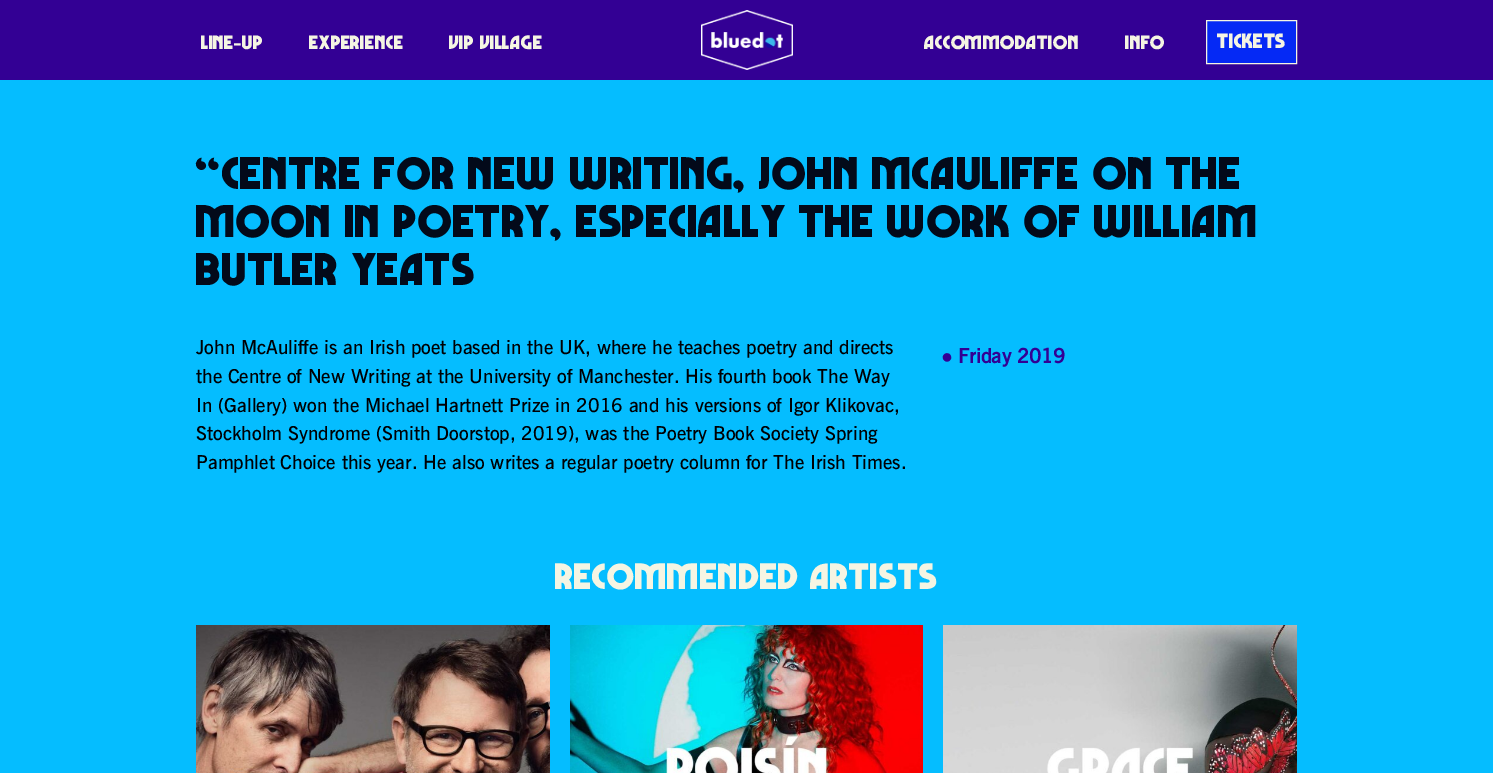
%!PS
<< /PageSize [1493 773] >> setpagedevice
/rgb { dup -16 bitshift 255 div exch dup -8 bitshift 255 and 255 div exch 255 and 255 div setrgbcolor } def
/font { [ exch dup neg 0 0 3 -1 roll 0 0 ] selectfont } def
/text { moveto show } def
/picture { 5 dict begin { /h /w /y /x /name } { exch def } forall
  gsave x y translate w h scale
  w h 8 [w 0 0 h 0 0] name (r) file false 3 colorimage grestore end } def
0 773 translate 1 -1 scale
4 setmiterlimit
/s1 { /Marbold-Bold 17 font 16#F5F5E3 rgb } def
/s2 { /Marbold-Bold 18 font 16#F5F5E3 rgb } def
/s3 { /Marbold-Bold 40 font 16#030A1A rgb } def
/s4 { /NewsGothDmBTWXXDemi-Regular 19.2 font 16#000003 rgb } def
/s5 { /LiberationSans-Bold 20 font 16#330094 rgb } def
/s6 { /NewsGothDmBTWXXDemi-Bold 20 font 16#330094 rgb } def
/s7 { /Marbold-Bold 32 font 16#F5F5E3 rgb } def
16#05BDFF rgb
0 0 1493 773 rectfill
16#330094 rgb
0 0 1493 80 rectfill
(pic1.raw) 701 10 92 60 picture
s1
(LINE-UP) 201 49 text
(EXPERIENCE) 309 49 text
(VIP VILLAGE) 449 49 text
(ACCOMMODATION) 924 49 text
(INFO) 1125 49 text
16#0529F5 rgb
1206.5 20.5 moveto 1296.5 20.5 lineto 1296.5 63.5 lineto 1206.5 63.5 lineto closepath gsave fill grestore
16#F5F5E3 rgb
stroke
s2
(TICKETS) 1217 48 text
s3
(“CENTRE FOR NEW WRITING, JOHN MCAULIFFE ON THE) 196 189 text
(MOON IN POETRY, ESPECIALLY THE WORK OF WILLIAM) 196 237 text
(BUTLER YEATS) 196 285 text
s4
(John McAuliffe is an Irish poet based in the UK, where he teaches poetry and directs) 196 354 text
(the Centre of New Writing at the University of Manchester. His fourth book The Way) 196 383 text
(In \(Gallery\) won the Michael Hartnett Prize in 2016 and his versions of Igor Klikovac,) 196 412 text
(Stockholm Syndrome \(Smith Doorstop, 2019\), was the Poetry Book Society Spring) 196 440 text
(Pamphlet Choice this year. He also writes a regular poetry column for The Irish Times.) 196 469 text
s5
(●) 941 363 text
s6
(Friday 2019) 958 363 text
s7
(RECOMMENDED ARTISTS) 555 589 text
(pic2.raw) 196 625 354 148 picture
(pic3.raw) 570 625 353 148 picture
(pic4.raw) 943 625 354 148 picture
showpage
